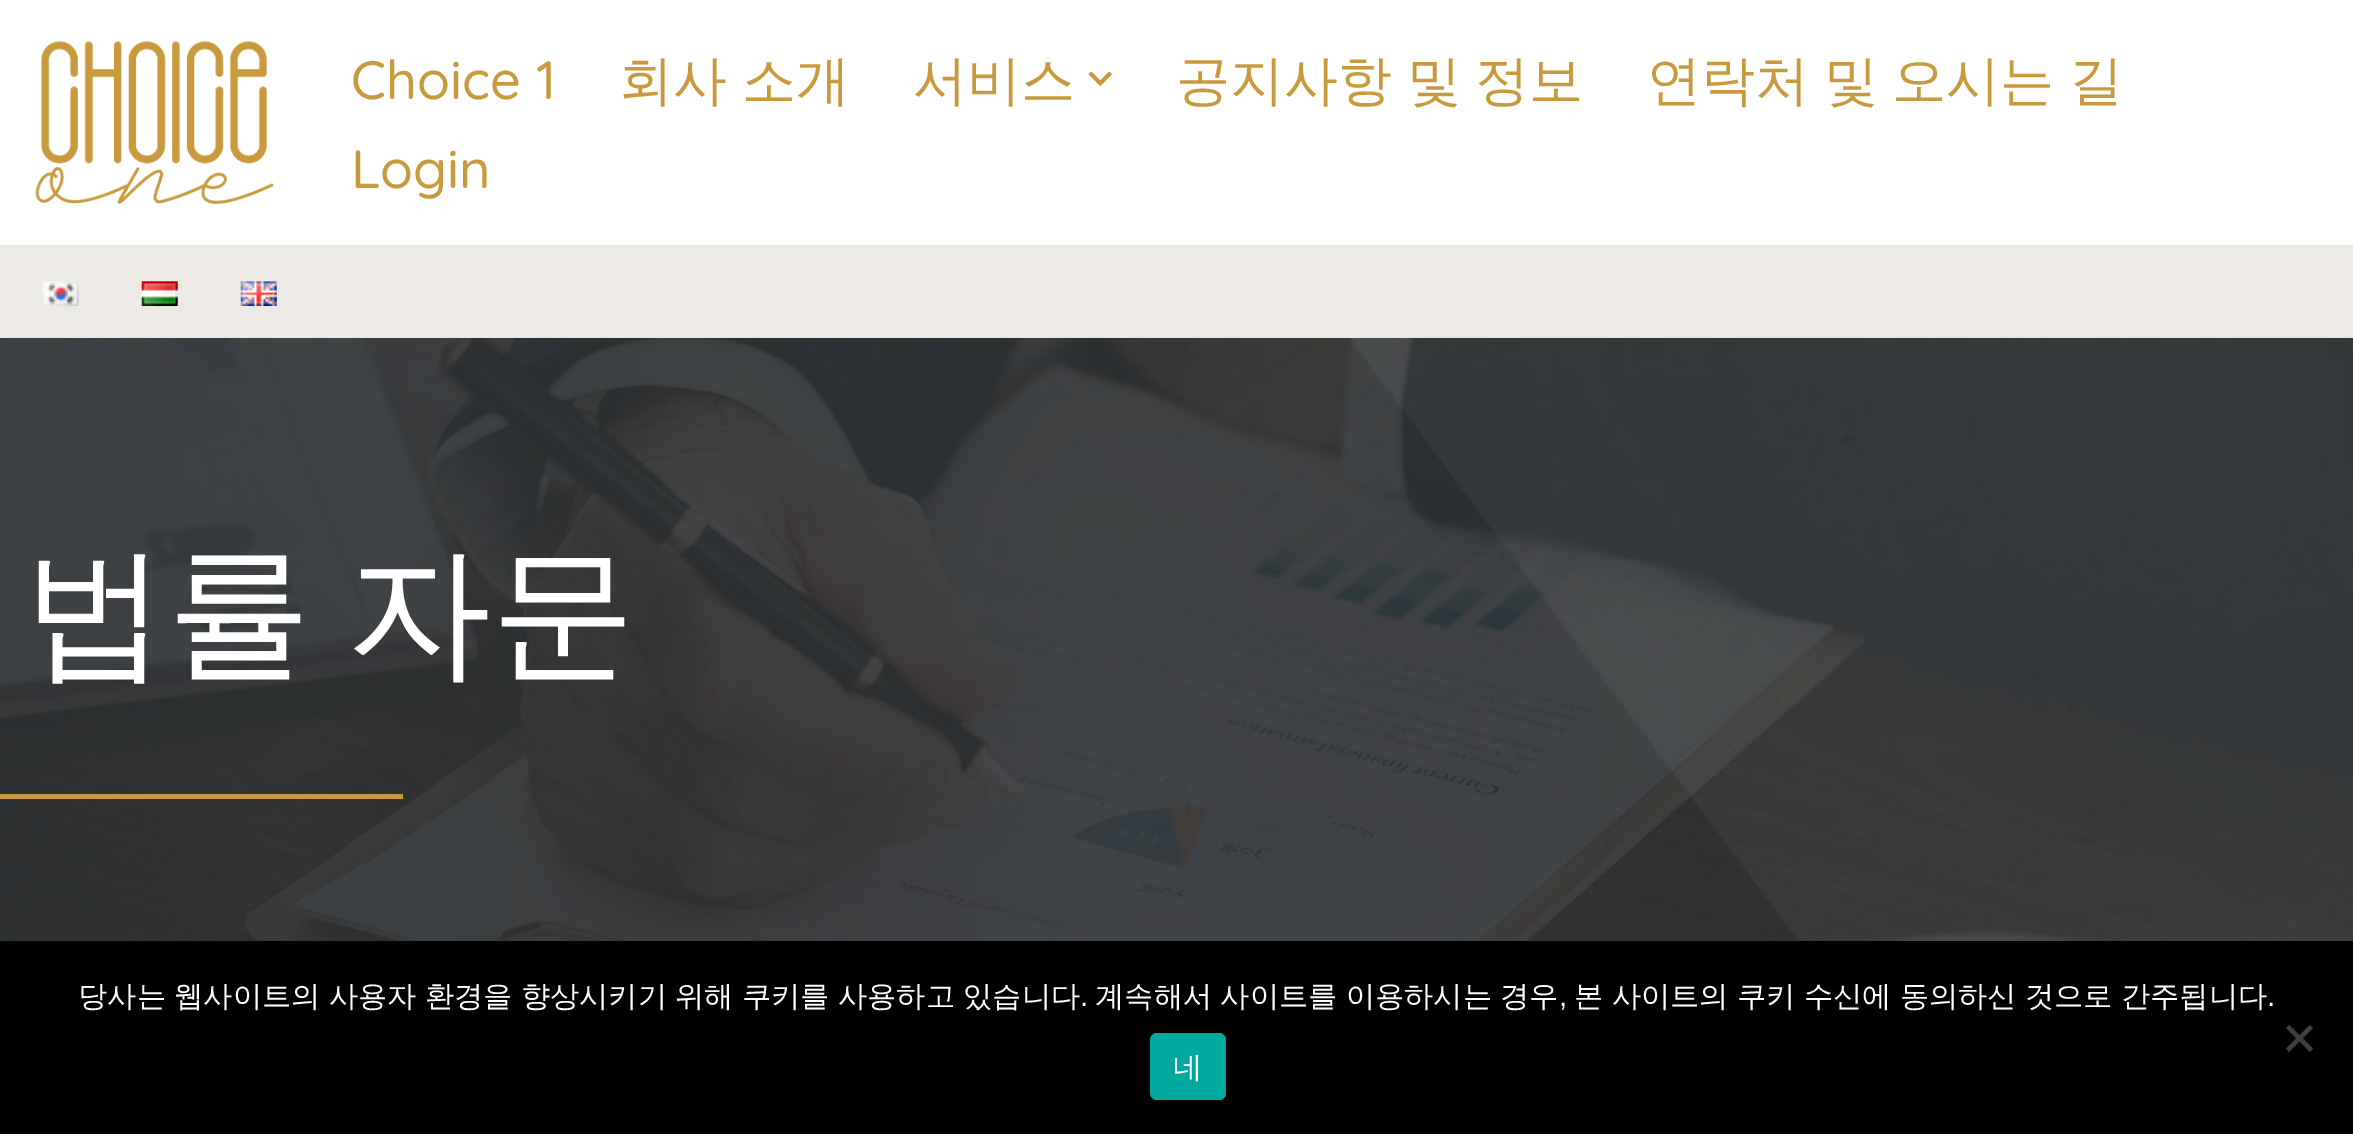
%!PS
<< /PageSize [2353 1134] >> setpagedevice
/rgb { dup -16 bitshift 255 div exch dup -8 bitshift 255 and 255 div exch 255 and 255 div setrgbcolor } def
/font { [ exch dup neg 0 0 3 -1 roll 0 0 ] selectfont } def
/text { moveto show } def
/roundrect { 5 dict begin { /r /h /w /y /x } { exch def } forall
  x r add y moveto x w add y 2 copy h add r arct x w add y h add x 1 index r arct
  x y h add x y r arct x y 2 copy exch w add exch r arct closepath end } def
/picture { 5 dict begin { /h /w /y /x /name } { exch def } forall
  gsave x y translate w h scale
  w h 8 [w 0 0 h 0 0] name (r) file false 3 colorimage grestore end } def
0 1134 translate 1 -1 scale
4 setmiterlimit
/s1 { /Quicksand-Medium 54 font 16#C99A3D rgb } def
/s2 { /WenQuanYiZenHei-Medium 54 font 16#C99A3D rgb } def
/s3 { /LiberationSans-Regular 29.25 font 16#FFFFFF rgb } def
16#FFFFFF rgb
0 0 2353 1134 rectfill
(pic1.raw) 35 41 239 163 picture
s1
(Choice 1) 351 99 text
/WenQuanYiZenHei-Medium 54 font
619 99 moveto -1.5 0 32 (회사 소개) widthshow
(서비스) 913 99 text
(pic2.raw) 1088 71 24 15 picture
1176 99 moveto -1.5 0 32 (공지사항 및 정보) widthshow
1647 99 moveto -1.5 0 32 (연락처 및 오시는 길) widthshow
s1
(Login) 351 188 text
16#EDE9E4 rgb
0 245 2353 93 rectfill
(pic3.raw) 42 281 37 25 picture
(pic4.raw) 141 281 37 25 picture
(pic5.raw) 240 281 37 25 picture
(pic6.raw) 0 338 2353 603 picture
/WenQuanYiZenHei-Medium 144 font
16#FFFFFF rgb
23 662 moveto -7 0 32 (법률 자문) widthshow
16#C99A3D rgb
0 794 403 5 rectfill
(pic7.raw) 1350 338 1003 603 picture
16#000000 rgb
0 941 2353 193 rectfill
/WenQuanYiZenHei-Medium 29.25 font
16#FFFFFF rgb
78 1006 moveto -0.5 0 32 (당사는 웹사이트의 사용자 환경을 향상시키기 위해 쿠키를 사용하고 있습니다) widthshow
s3
(.) 1080 1006 text
/WenQuanYiZenHei-Medium 29.25 font
1095 1006 moveto -0.5 0 32 (계속해서 사이트를 이용하시는 경우) widthshow
s3
(,) 1559 1006 text
/WenQuanYiZenHei-Medium 29.25 font
1574 1006 moveto -0.5 0 32 (본 사이트의 쿠키 수신에 동의하신 것으로 간주됩니다) widthshow
s3
(.) 2267 1006 text
16#404040 rgb
2310 1025 moveto 2313 1028 lineto 2289 1052 lineto 2286 1048.5 lineto closepath fill
2286 1028 moveto 2289 1025 lineto 2313 1048.5 lineto 2310 1052 lineto closepath fill
16#00A99D rgb
1150 1033 76 67 7 roundrect fill
/WenQuanYiZenHei-Medium 29.25 font
16#FFFFFF rgb
1173 1077 moveto 1 0 (네) ashow
showpage
